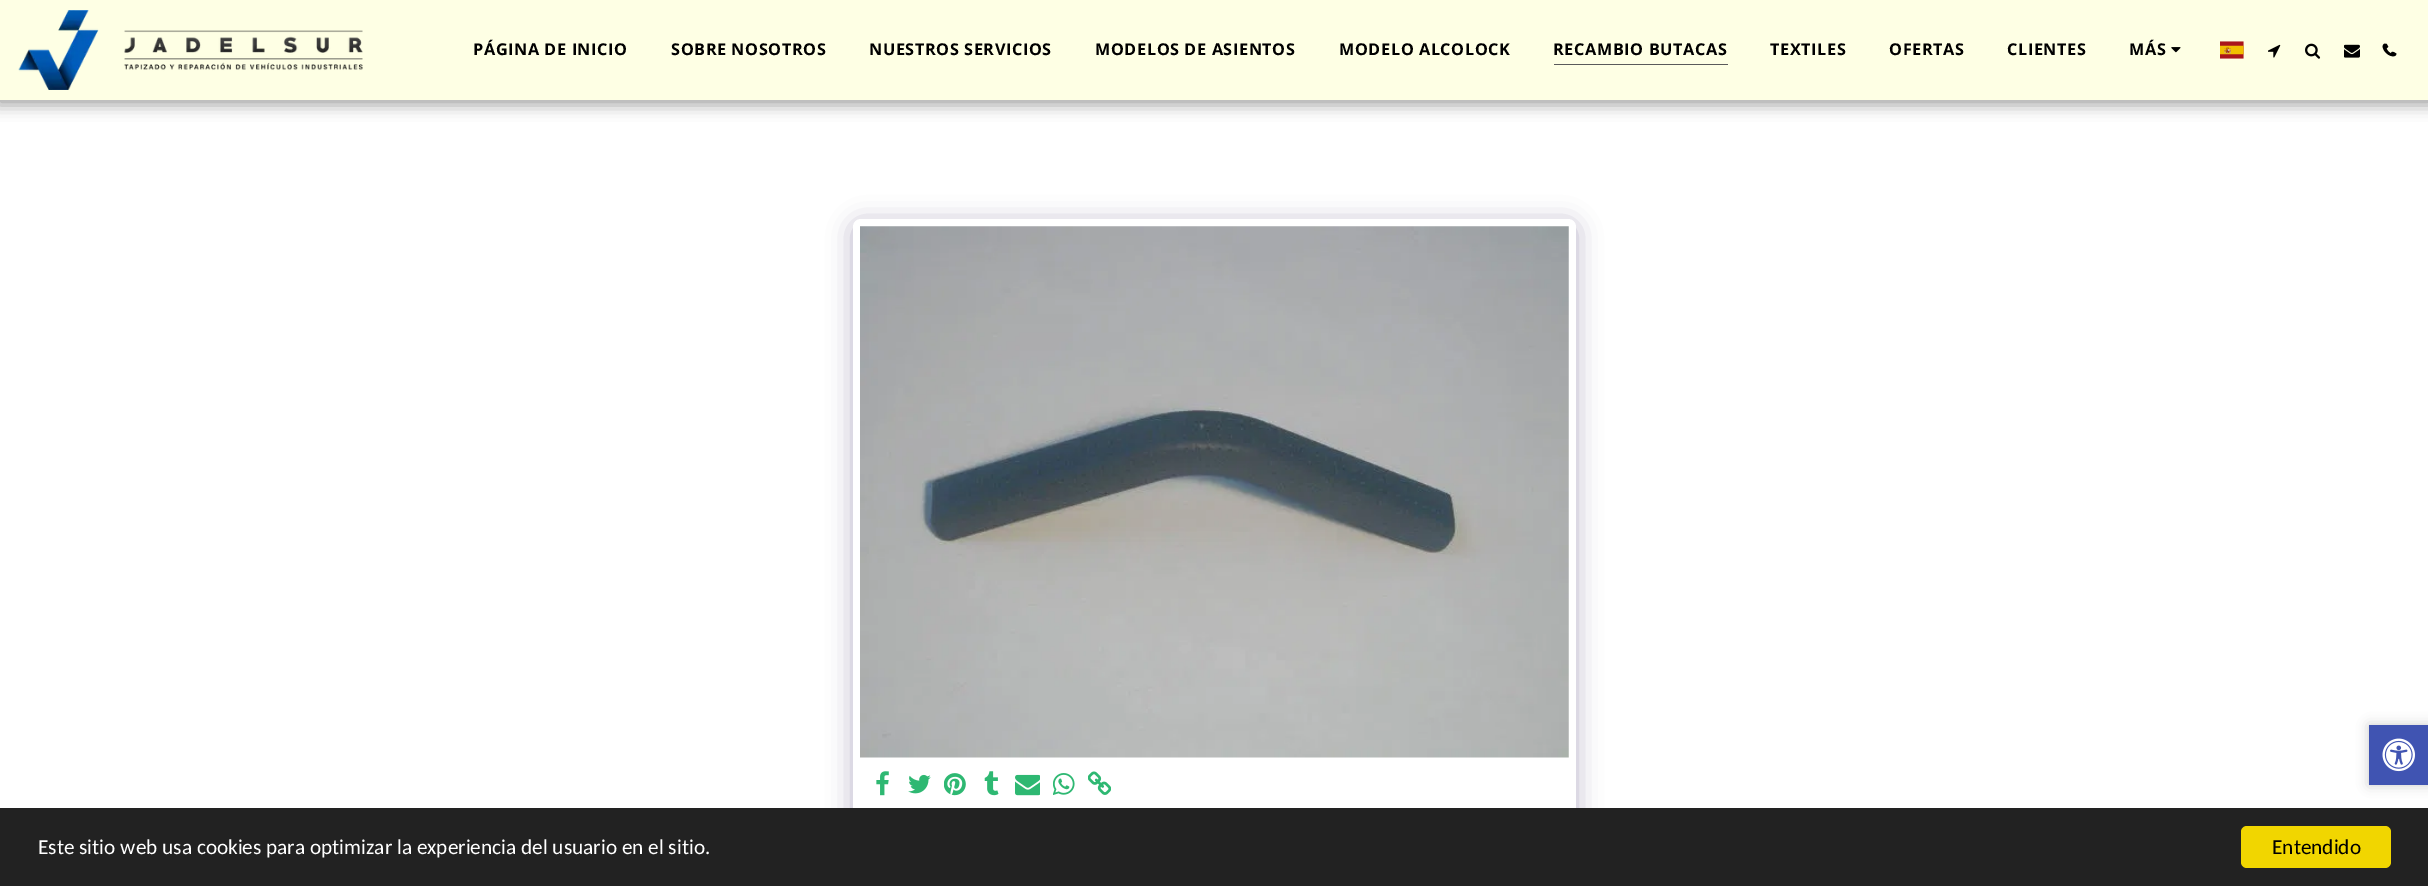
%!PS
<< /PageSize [2428 886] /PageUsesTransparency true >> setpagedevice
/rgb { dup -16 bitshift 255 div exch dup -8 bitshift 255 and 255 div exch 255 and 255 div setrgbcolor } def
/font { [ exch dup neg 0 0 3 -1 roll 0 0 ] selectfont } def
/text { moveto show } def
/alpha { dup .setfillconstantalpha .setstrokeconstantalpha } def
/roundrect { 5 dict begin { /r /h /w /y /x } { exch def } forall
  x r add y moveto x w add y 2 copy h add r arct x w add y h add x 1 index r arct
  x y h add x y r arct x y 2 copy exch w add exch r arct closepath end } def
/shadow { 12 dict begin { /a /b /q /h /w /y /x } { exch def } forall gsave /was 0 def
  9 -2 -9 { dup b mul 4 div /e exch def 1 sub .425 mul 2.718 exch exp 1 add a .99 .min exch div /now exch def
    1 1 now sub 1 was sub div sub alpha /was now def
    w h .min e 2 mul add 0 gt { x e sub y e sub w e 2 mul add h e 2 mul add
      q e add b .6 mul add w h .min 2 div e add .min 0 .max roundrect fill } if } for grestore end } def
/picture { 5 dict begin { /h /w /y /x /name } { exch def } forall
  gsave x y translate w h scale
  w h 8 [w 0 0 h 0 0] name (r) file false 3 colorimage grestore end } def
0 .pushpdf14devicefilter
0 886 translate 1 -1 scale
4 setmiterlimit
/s1 { /Carlito-Regular 21.25 font 16#FFFFFF rgb } def
/s2 { /Carlito-Regular 21.25 font 16#000000 rgb } def
16#FFFFFF rgb
0 0 2428 886 rectfill
16#000000 rgb
-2 0 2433 105 0 7.5 0.35 shadow
16#FEFFE4 rgb
0 0 2428 100 rectfill
(pic1.raw) 18 10 345 80 picture
/OpenSans-Bold 16.25 font
16#000000 rgb
473 55 moveto 0.6 0 (PÁGINA DE INICIO) ashow
671 55 moveto 0.6 0 (SOBRE NOSOTROS) ashow
869 55 moveto 0.6 0 (NUESTROS SERVICIOS) ashow
1095 55 moveto 0.6 0 (MODELOS DE ASIENTOS) ashow
1339 55 moveto 0.6 0 (MODELO ALCOLOCK) ashow
1553 55 moveto 0.6 0 (RECAMBIO BUTACAS) ashow
16#5A5A5A rgb
1554 64 174 1 rectfill
16#000000 rgb
1770 55 moveto 0.6 0 (TEXTILES) ashow
1889 55 moveto 0.6 0 (OFERTAS) ashow
2007 55 moveto 0.6 0 (CLIENTES) ashow
2129 55 moveto 0.6 0 (MÁS) ashow
(pic2.raw) 2171 47 10 6 picture
(pic3.raw) 2220 41 24 18 picture
(pic4.raw) 2268 44 13 14 picture
(pic5.raw) 2305 43 16 16 picture
(pic6.raw) 2344 44 16 14 picture
(pic7.raw) 2384 43 13 14 picture
(pic8.raw) 2382 43 13 14 picture
16#4D3F7A rgb
853 223 723 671 8 12.5 0.4 shadow
16#FFFFFF rgb
853 219 723 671 8 roundrect fill
(pic9.raw) 860 226 709 532 picture
(pic10.raw) 876 771 13 25 picture
(pic11.raw) 908 774 23 20 picture
(pic12.raw) 944 773 22 23 picture
(pic13.raw) 984 771 15 25 picture
(pic14.raw) 1015 774 25 22 picture
(pic15.raw) 1053 773 22 22 picture
(pic16.raw) 1088 771 23 24 picture
16#222222 rgb
0 808 2428 78 rectfill
s1
(Este sitio web usa cookies para optimizar la experiencia del usuario en el sitio.) 38 854 text
16#F1D600 rgb
2241 826 150 42 6 roundrect fill
s2
(Entendido) 2272 854 text
2369 725 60 60 0 6 0.2 shadow
16#4054B2 rgb
2369 725 59 60 rectfill
(pic17.raw) 2382 738 33 34 picture
.poppdf14devicefilter showpage
